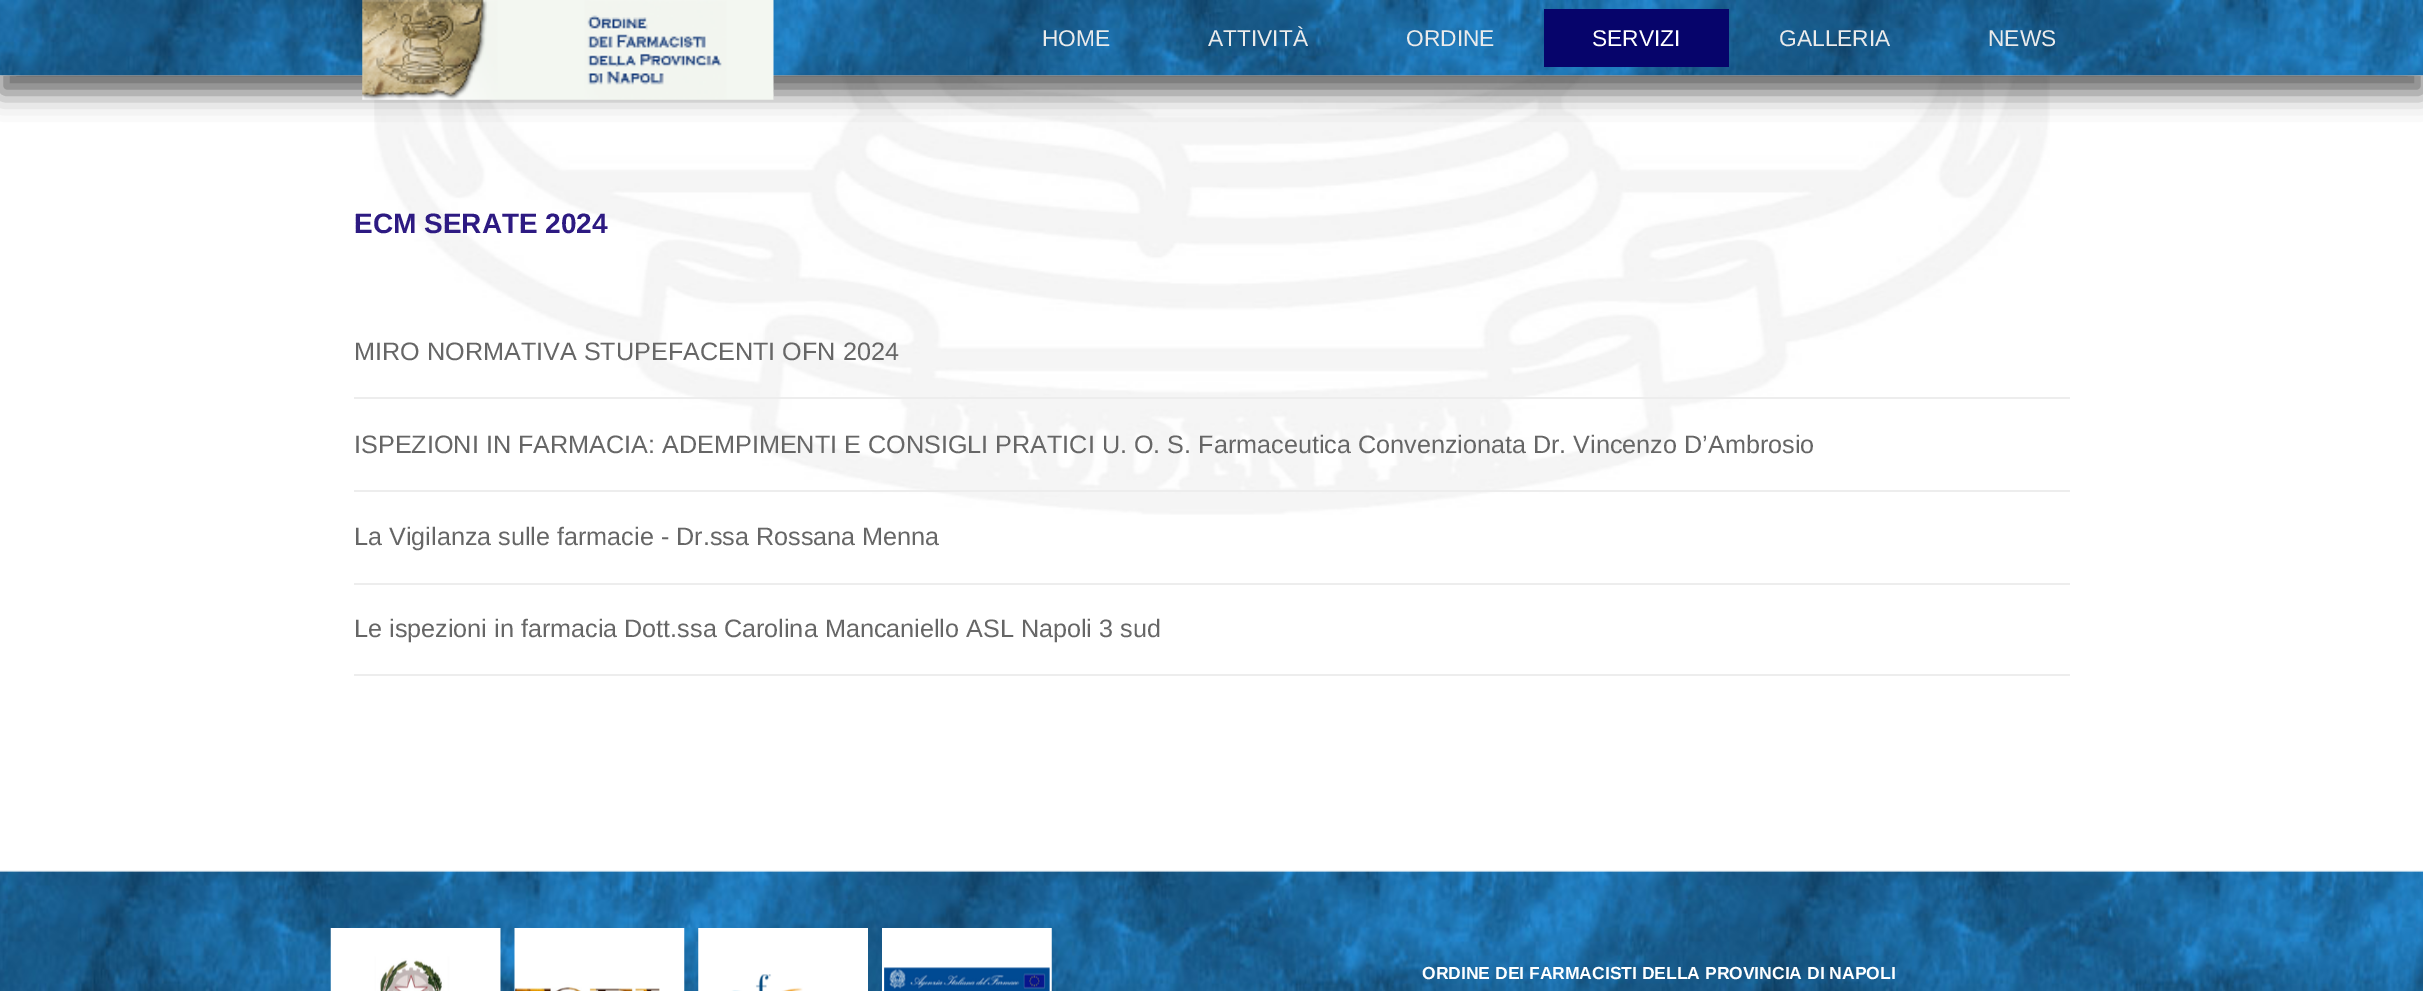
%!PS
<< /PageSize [2423 991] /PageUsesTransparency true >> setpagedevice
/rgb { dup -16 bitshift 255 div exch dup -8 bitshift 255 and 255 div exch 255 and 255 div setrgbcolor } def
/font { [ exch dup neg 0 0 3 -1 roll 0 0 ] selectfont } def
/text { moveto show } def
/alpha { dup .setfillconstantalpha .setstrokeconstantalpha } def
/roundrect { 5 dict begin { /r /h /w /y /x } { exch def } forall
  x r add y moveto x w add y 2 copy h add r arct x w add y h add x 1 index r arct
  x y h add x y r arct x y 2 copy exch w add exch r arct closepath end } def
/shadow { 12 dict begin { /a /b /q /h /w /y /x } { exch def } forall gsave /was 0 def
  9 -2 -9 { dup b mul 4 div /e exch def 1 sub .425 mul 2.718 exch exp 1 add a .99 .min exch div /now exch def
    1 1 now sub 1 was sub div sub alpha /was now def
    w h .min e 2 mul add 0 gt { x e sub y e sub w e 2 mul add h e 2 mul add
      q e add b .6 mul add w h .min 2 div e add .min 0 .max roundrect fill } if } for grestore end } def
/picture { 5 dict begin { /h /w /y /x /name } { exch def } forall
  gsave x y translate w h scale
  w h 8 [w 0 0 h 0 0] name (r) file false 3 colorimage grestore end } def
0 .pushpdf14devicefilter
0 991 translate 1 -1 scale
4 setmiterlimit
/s1 { /LiberationSans-Regular 22.75 font 16#EBEBEB rgb } def
/s2 { /LiberationSans-Regular 22.75 font 16#FFFFFF rgb } def
/s3 { /LiberationSans-Bold 28 font 16#2D1A82 rgb } def
/s4 { /LiberationSans-Regular 25.2 font 16#666666 rgb } def
/s5 { /LiberationSans-Bold 17.5 font 16#FFFFFF rgb } def
16#FFFFFF rgb
0 0 2423 991 rectfill
(pic3.raw) 374 75 1676 440 picture
16#000000 rgb
0 18 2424 75 0 13 0.6 shadow
(pic1.raw) 0 0 2423 76 picture
(pic2.raw) 362 0 412 100 picture
s1
(HOME) 1042 46 text
(ATTIVITÀ) 1208 46 text
(ORDINE) 1406 46 text
16#06046B rgb
1544 9 185 58 rectfill
s2
(SERVIZI) 1592 46 text
s1
(GALLERIA) 1779 46 text
(NEWS) 1988 46 text
s3
(ECM SERATE 2024) 354 233 text
s4
(MIRO NORMATIVA STUPEFACENTI OFN 2024) 354 360 text
16#EDEDED rgb
354 397 1716 2 rectfill
s4
(ISPEZIONI IN FARMACIA: ADEMPIMENTI E CONSIGLI PRATICI U. O. S. Farmaceutica Convenzionata Dr. Vincenzo D’Ambrosio) 354 453 text
16#EDEDED rgb
354 490 1716 2 rectfill
s4
(La Vigilanza sulle farmacie - Dr.ssa Rossana Menna) 354 545 text
16#EDEDED rgb
354 583 1716 2 rectfill
s4
(Le ispezioni in farmacia Dott.ssa Carolina Mancaniello ASL Napoli 3 sud) 354 637 text
16#EDEDED rgb
354 674 1716 2 rectfill
(pic4.raw) 0 870 2423 121 picture
(pic5.raw) 330 928 171 63 picture
(pic6.raw) 514 928 171 63 picture
(pic7.raw) 698 928 170 63 picture
(pic8.raw) 882 928 170 63 picture
s5
(ORDINE DEI FARMACISTI DELLA PROVINCIA DI NAPOLI) 1422 979 text
.poppdf14devicefilter showpage
